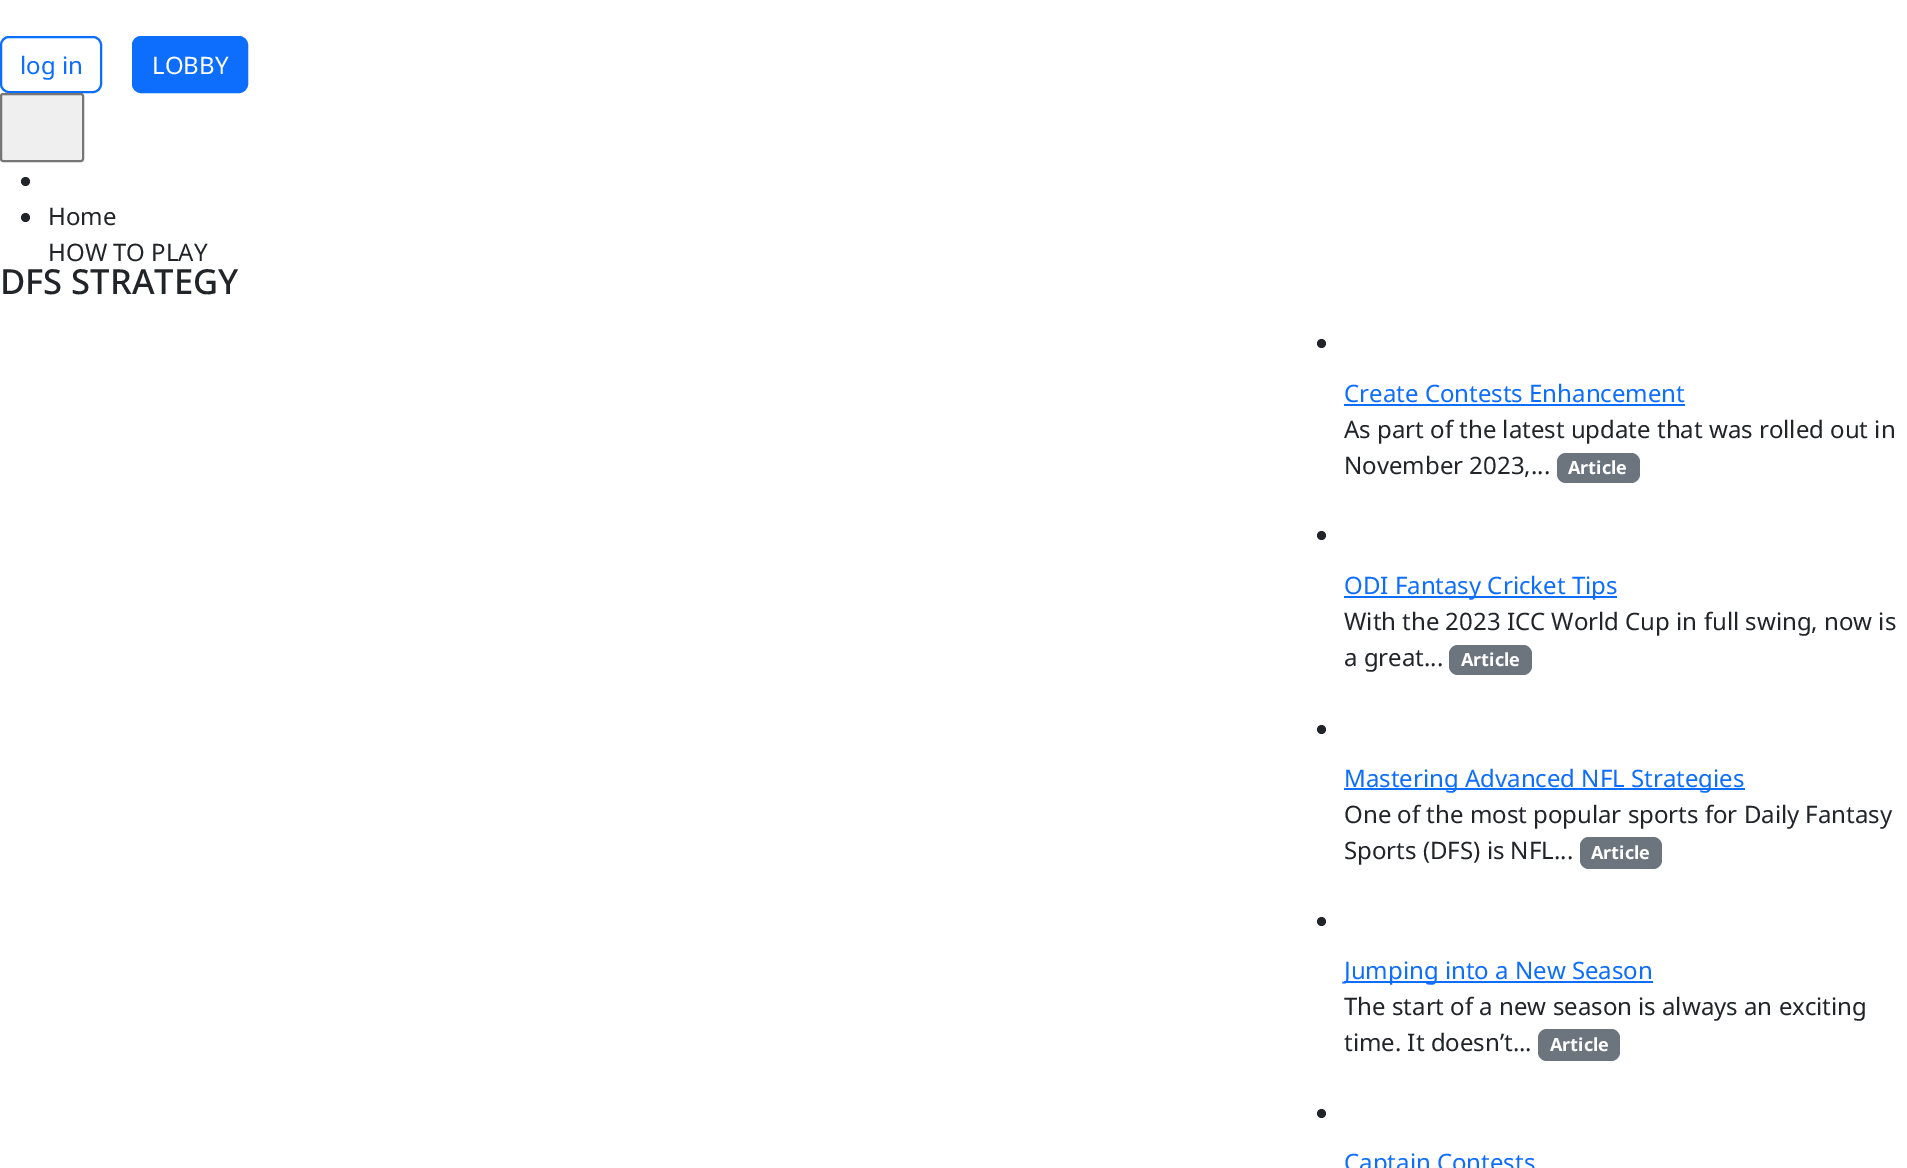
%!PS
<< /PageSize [1907 1168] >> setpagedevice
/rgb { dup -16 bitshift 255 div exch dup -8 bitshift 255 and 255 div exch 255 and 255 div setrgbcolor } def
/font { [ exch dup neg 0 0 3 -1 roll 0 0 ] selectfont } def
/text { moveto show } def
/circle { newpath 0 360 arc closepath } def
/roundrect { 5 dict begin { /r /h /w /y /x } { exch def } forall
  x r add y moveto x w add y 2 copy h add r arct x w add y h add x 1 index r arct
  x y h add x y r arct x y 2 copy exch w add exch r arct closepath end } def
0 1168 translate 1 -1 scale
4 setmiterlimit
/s1 { /NotoSans-Regular 24 font 16#0D6EFD rgb } def
/s2 { /NotoSans-Regular 24 font 16#FFFFFF rgb } def
/s3 { /NotoSans-Regular 24 font 16#212529 rgb } def
/s4 { /NotoSans-Medium 34.5 font 16#212529 rgb } def
/s5 { /NotoSans-Bold 18 font 16#FFFFFF rgb } def
16#FFFFFF rgb
0 0 1907 1168 rectfill
16#0D6EFD rgb
2 setlinewidth
1 37 100 55 8 roundrect stroke
s1
(log in) 20 74 text
133 37 114 55 8 roundrect gsave fill grestore
stroke
s2
(LOBBY) 152 74 text
16#EFEFEF rgb
1 94 82 67 2 roundrect gsave fill grestore
16#767676 rgb
stroke
16#212529 rgb
25.5 181.5 4.5 circle fill
(Home) 48 225 text
25.5 217.5 4.5 circle fill
(HOW TO PLAY) 48 261 text
s4
(DFS STRATEGY) 0 294 text
1321.5 343.5 4.5 circle fill
s1
(Create Contests Enhancement) 1344 402 text
1344 404 341 2 rectfill
s3
(As part of the latest update that was rolled out in) 1344 438 text
(November 2023,...) 1344 474 text
16#6C757D rgb
1557 453 83 30 9 roundrect fill
s5
(Article) 1568 474 text
16#212529 rgb
1321.5 535.5 4.5 circle fill
16#0D6EFD rgb
1344 596 273 2 rectfill
s1
(ODI Fantasy Cricket Tips) 1344 594 text
s3
(With the 2023 ICC World Cup in full swing, now is) 1344 630 text
(a great...) 1344 666 text
16#6C757D rgb
1449 645 83 30 9 roundrect fill
s5
(Article) 1461 666 text
16#212529 rgb
1321.5 729.5 4.5 circle fill
16#0D6EFD rgb
1344 788 401 2 rectfill
s1
(Mastering Advanced NFL Strategies) 1344 787 text
s3
(One of the most popular sports for Daily Fantasy) 1344 823 text
(Sports \(DFS\) is NFL...) 1344 859 text
16#6C757D rgb
1580 837 82 32 9 roundrect fill
s5
(Article) 1591 859 text
16#212529 rgb
1321.5 921.5 4.5 circle fill
16#0D6EFD rgb
1344 981 309 2 rectfill
s1
(Jumping into a New Season) 1344 979 text
s3
(The start of a new season is always an exciting) 1344 1015 text
(time. It doesn’t...) 1344 1051 text
16#6C757D rgb
1538 1029 82 32 9 roundrect fill
s5
(Article) 1550 1051 text
16#212529 rgb
1321.5 1113.5 4.5 circle fill
s1
(Captain Contests) 1344 1171 text
showpage
